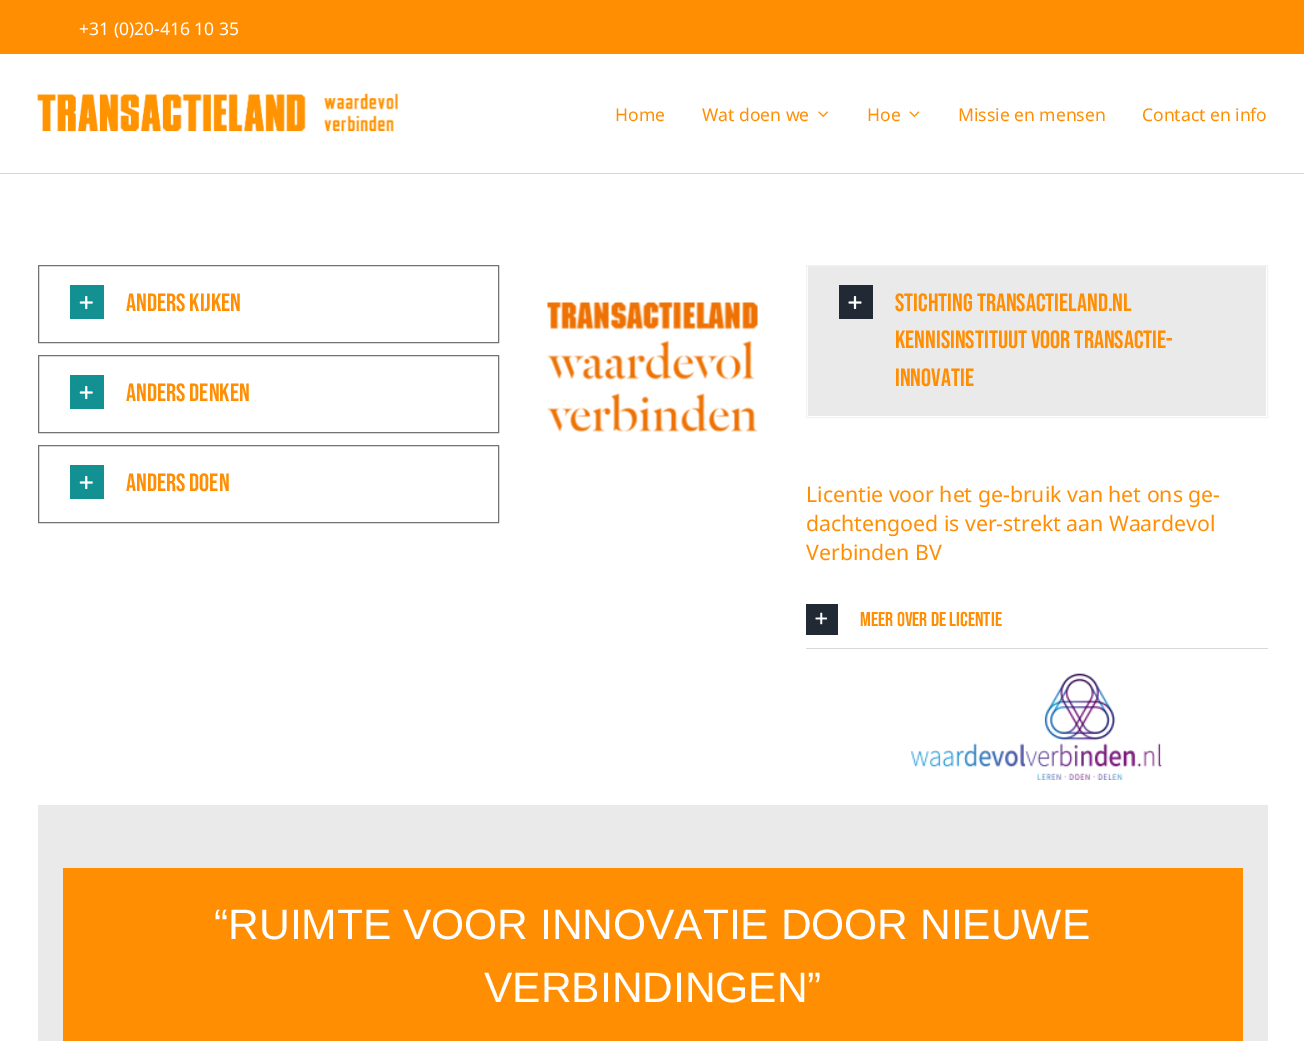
%!PS
<< /PageSize [1304 1041] >> setpagedevice
/rgb { dup -16 bitshift 255 div exch dup -8 bitshift 255 and 255 div exch 255 and 255 div setrgbcolor } def
/font { [ exch dup neg 0 0 3 -1 roll 0 0 ] selectfont } def
/text { moveto show } def
/picture { 5 dict begin { /h /w /y /x /name } { exch def } forall
  gsave x y translate w h scale
  w h 8 [w 0 0 h 0 0] name (r) file false 3 colorimage grestore end } def
0 1041 translate 1 -1 scale
4 setmiterlimit
/s1 { /NotoSans-Regular 17.5 font 16#FFFFFF rgb } def
/s2 { /NotoSans-Regular 17.5 font 16#FF8E03 rgb } def
/s3 { /BebasNeue-Regular 25 font 16#FF8E03 rgb } def
/s4 { /NotoSans-Regular 21.25 font 16#FF8E03 rgb } def
/s5 { /BebasNeue-Regular 20 font 16#FF8E03 rgb } def
/s6 { /LiberationSans-Regular 42.5 font 16#FFFFFF rgb } def
16#FFFFFF rgb
0 0 1304 1041 rectfill
16#FF8E03 rgb
0 0 1304 54 rectfill
s1
(+31 \(0\)20-416 10 35) 79 35 text
16#D8D8D8 rgb
0 173 1304 1 rectfill
(pic1.raw) 37 93 361 39 picture
s2
(Home) 615 121 text
(Wat doen we) 702 121 text
(pic2.raw) 818 111 10 6 picture
(Hoe) 867 121 text
(pic3.raw) 909 111 11 6 picture
(Missie en mensen) 958 121 text
(Contact en info) 1142 121 text
16#767171 rgb
38.5 265.5 460 77 rectstroke
16#139192 rgb
70 285 34 34 rectfill
(pic4.raw) 79 296 14 14 picture
s3
(ANDERS KIJKEN) 126 311 text
16#767171 rgb
38.5 355.5 460 77 rectstroke
16#139192 rgb
70 375 34 34 rectfill
(pic4.raw) 79 386 14 14 picture
s3
(ANDERS DENKEN) 126 401 text
16#767171 rgb
38.5 445.5 460 77 rectstroke
16#139192 rgb
70 465 34 34 rectfill
(pic4.raw) 79 476 14 14 picture
s3
(ANDERS DOEN) 126 491 text
(pic5.raw) 547 302 211 130 picture
16#EAEAEA rgb
808 266 458 150 rectfill
16#F2F3F5 rgb
806.5 265.5 461 152 rectstroke
16#212934 rgb
839 285 34 34 rectfill
(pic6.raw) 848 296 14 13 picture
s3
(STICHTING TRANSACTIELAND.NL) 895 311 text
(KENNISINSTITUUT VOOR TRANSACTIE-) 895 348 text
(INNOVATIE) 895 386 text
s4
(Licentie voor het ge-bruik van het ons ge-) 806 502 text
(dachtengoed is ver-strekt aan Waardevol) 806 531 text
(Verbinden BV) 806 560 text
16#D8D8D8 rgb
806 648 462 1 rectfill
16#212934 rgb
806 604 32 31 rectfill
(pic7.raw) 815 612 12 13 picture
s5
(MEER OVER DE LICENTIE) 860 626 text
(pic8.raw) 911 673 251 107 picture
16#EAEAEA rgb
38 805 1230 236 rectfill
16#FF8E03 rgb
63 868 1180 173 rectfill
s6
(“RUIMTE VOOR INNOVATIE DOOR NIEUWE) 214 939 text
(VERBINDINGEN”) 484 1002 text
showpage
